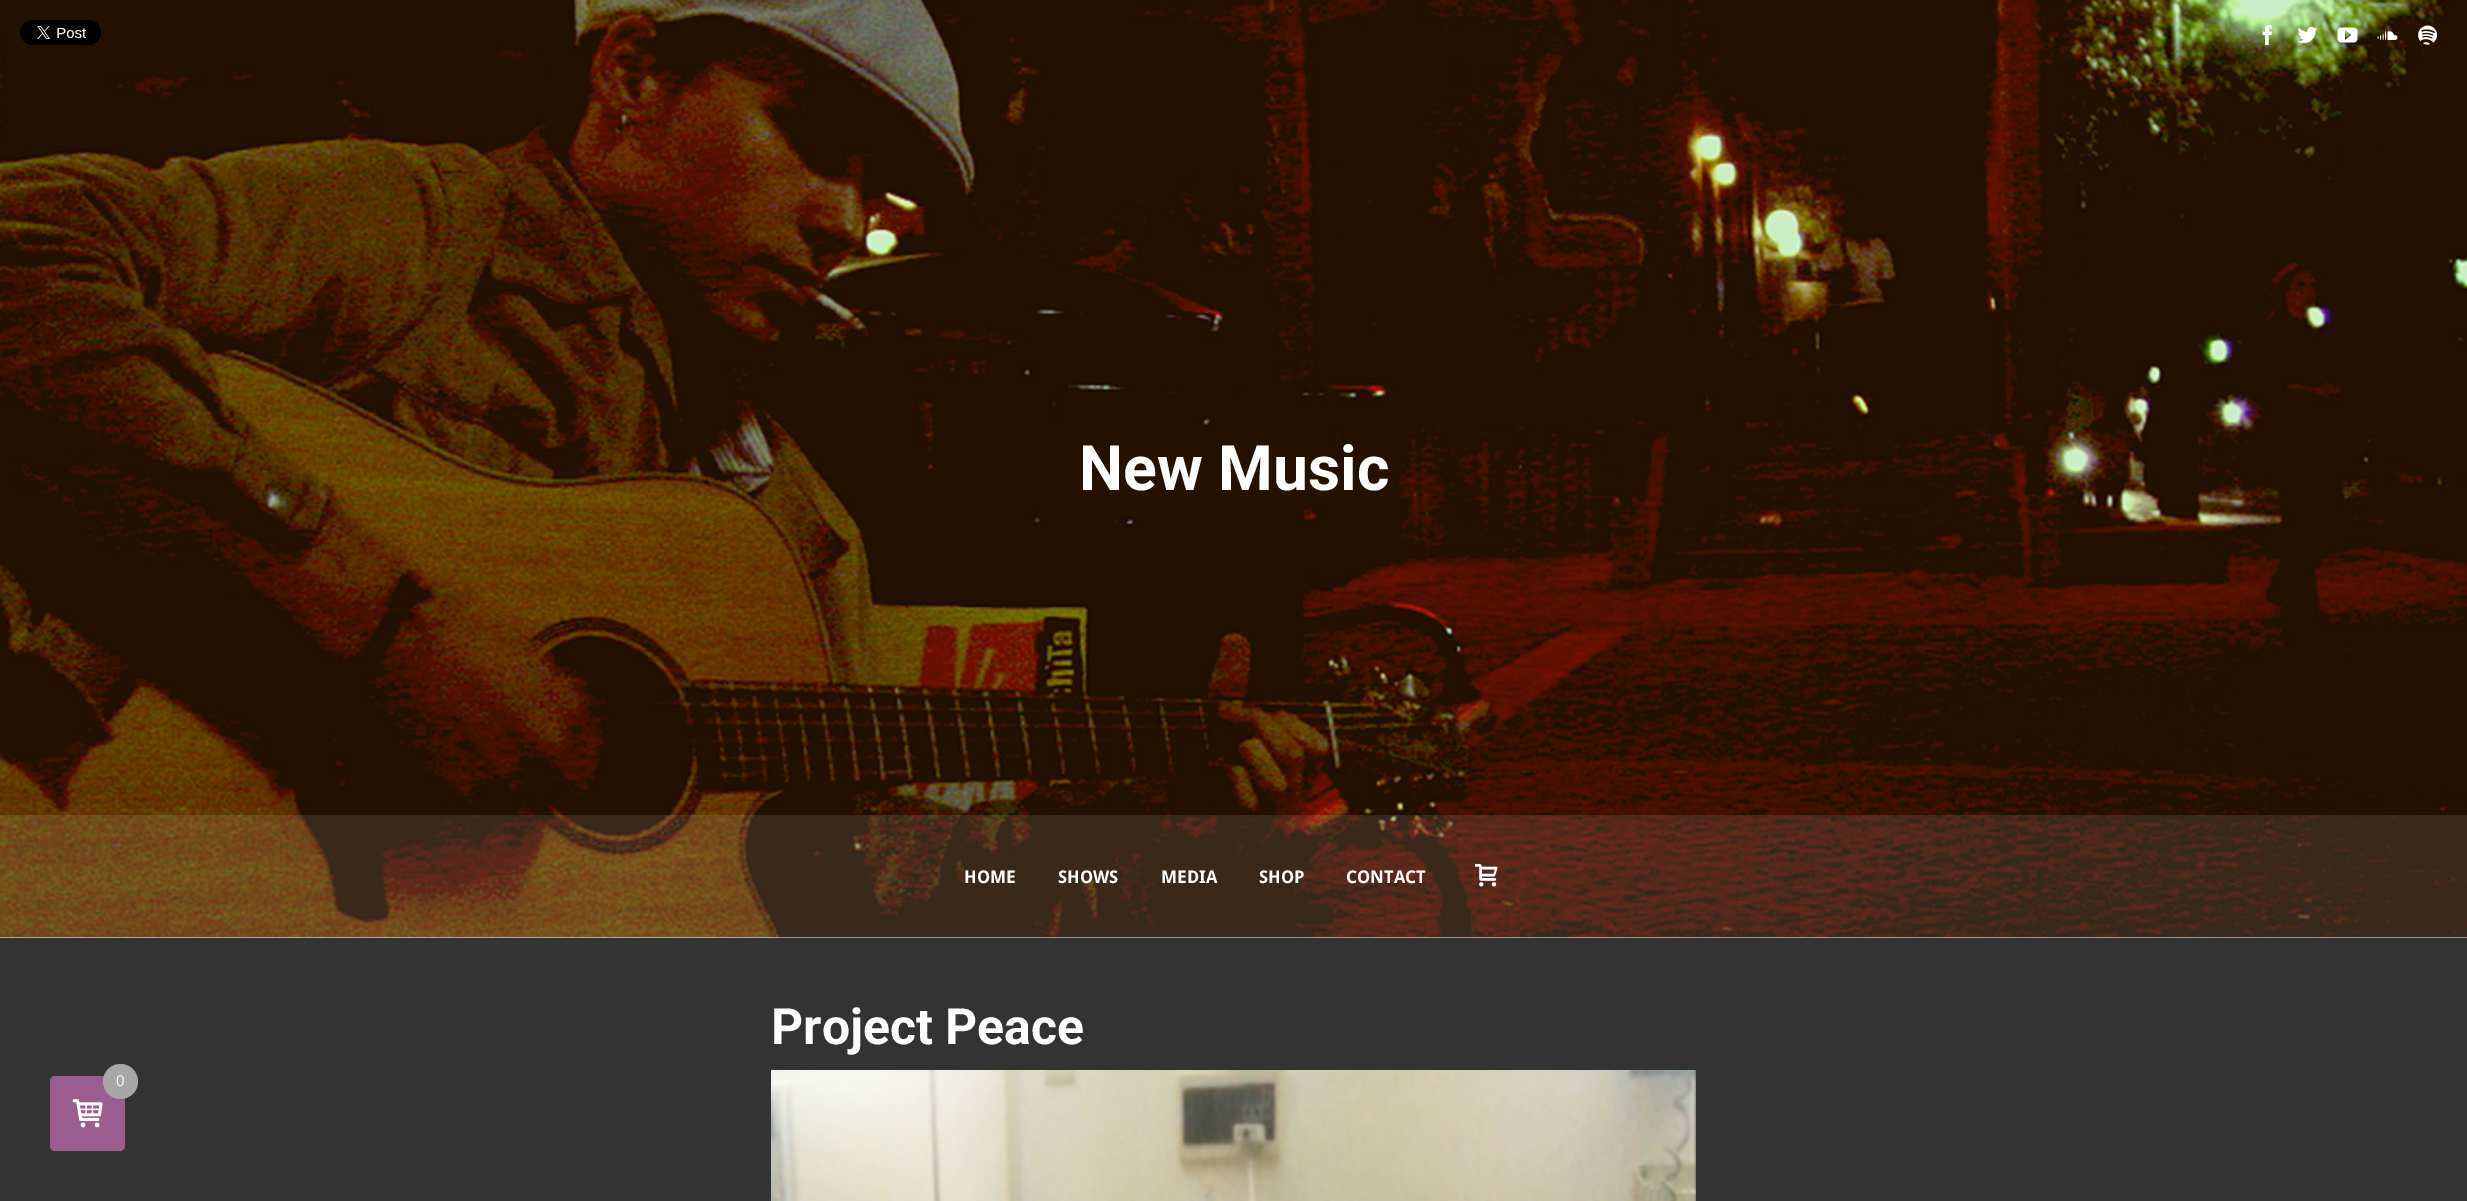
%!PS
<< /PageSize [2467 1201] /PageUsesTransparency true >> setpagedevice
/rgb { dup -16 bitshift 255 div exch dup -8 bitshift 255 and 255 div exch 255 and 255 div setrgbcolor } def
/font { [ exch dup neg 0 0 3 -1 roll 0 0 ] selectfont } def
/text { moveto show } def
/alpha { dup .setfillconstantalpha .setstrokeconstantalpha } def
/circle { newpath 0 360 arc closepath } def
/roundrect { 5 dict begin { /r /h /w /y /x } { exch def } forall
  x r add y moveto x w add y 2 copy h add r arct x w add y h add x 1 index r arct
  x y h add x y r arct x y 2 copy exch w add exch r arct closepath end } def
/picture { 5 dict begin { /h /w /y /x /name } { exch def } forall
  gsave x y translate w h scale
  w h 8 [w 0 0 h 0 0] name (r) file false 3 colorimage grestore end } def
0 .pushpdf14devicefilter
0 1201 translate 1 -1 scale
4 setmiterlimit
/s1 { /Roboto-Bold 62.5 font 16#FFFFFF rgb } def
/s2 { /DroidSans-Bold 17.5 font 16#FFFFFF rgb } def
/s3 { /Roboto-Bold 50 font 16#FFFFFF rgb } def
/s4 { /OpenSans-Regular 15 font 16#FFFFFF rgb } def
16#FFFFFF rgb
0 0 2467 1201 rectfill
(pic1.raw) 0 0 2467 938 picture
(pic2.raw) 20 20 81 25 picture
(pic3.raw) 2262 25 10 20 picture
(pic4.raw) 2297 26 21 18 picture
(pic5.raw) 2337 27 21 16 picture
(pic6.raw) 2377 31 21 9 picture
(pic7.raw) 2418 25 20 20 picture
s1
(New Music) 1079 490 text
0.1 alpha
0 815 2467 123 rectfill
1 alpha
s2
(HOME) 964 883 text
(SHOWS) 1058 883 text
(MEDIA) 1161 883 text
(SHOP) 1259 883 text
(CONTACT) 1346 883 text
(pic8.raw) 1475 863 23 24 picture
16#333333 rgb
0 938 2467 263 rectfill
s3
(Project Peace) 771 1044 text
(pic9.raw) 771 1070 925 131 picture
16#9B5C8F rgb
50 1076 75 75 5 roundrect fill
16#A7A7A7 rgb
120.5 1081.5 17.5 circle fill
s4
(0) 116 1086 text
(pic10.raw) 72 1099 31 29 picture
.poppdf14devicefilter showpage
